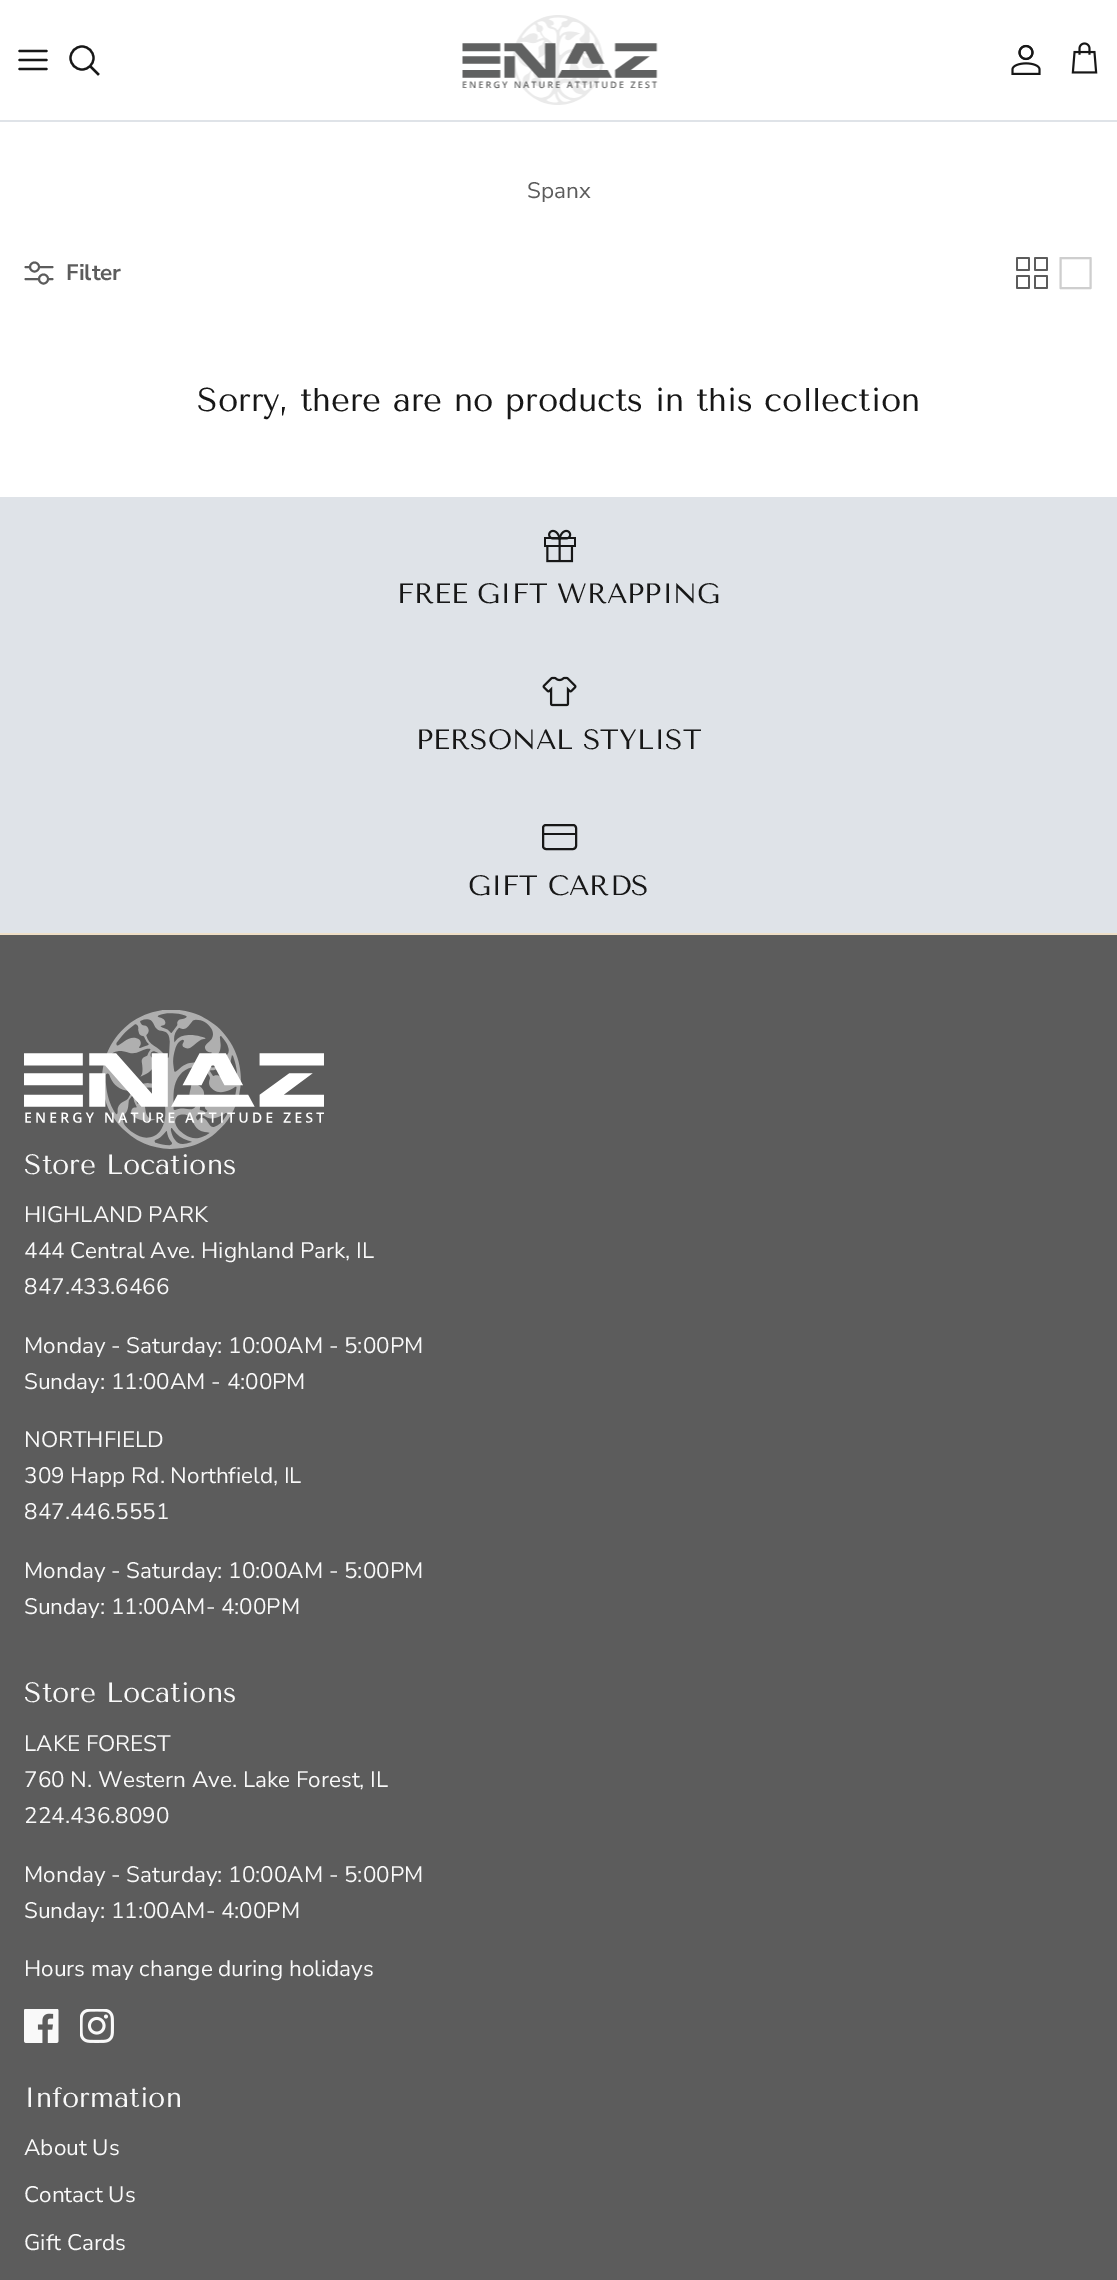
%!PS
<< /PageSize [1117 2280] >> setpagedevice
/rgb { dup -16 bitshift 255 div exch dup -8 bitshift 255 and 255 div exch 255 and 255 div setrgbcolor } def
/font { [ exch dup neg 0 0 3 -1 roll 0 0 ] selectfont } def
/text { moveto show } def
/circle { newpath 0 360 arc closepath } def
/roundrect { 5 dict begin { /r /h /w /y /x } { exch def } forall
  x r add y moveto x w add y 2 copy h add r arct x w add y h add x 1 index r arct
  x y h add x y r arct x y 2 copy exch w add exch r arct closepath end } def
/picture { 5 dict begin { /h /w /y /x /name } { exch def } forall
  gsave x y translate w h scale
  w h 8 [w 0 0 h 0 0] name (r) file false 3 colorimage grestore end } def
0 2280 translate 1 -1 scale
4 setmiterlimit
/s1 { /NunitoSans-Regular 22.5 font 16#5C5C5C rgb } def
/s2 { /NunitoSans-Bold 22.5 font 16#5C5C5C rgb } def
/s3 { /TenorSans-Regular 33 font 16#171717 rgb } def
/s4 { /TenorSans-Regular 28 font 16#171717 rgb } def
/s5 { /TenorSans-Regular 28 font 16#F9F9F9 rgb } def
/s6 { /NunitoSans-Regular 22.5 font 16#F9F9F9 rgb } def
16#FFFFFF rgb
0 0 1117 2280 rectfill
16#DFE3E8 rgb
0 120 1117 2 rectfill
16#171717 rgb
2.2 setlinewidth
1 setlinecap
1 setlinejoin
19.5 60 moveto 46.5 60 lineto 19.5 51 moveto 46.5 51 lineto 19.5 69 moveto 46.5 69 lineto stroke
0 setlinecap
0 setlinejoin
82 58 11.5 circle stroke
2 setlinecap
91.5 67.5 moveto 98 74 lineto stroke
(pic1.raw) 462 15 196 90 picture
(pic2.raw) 1011 44 30 31 picture
(pic3.raw) 1071 42 27 32 picture
s1
(Spanx) 527 198 text
1.9 setlinewidth
1 setlinecap
1 setlinejoin
25.5 267 moveto 52.5 267 lineto 25.5 279 moveto 52.5 279 lineto stroke
16#FFFFFF rgb
34.5 267 4.5 circle gsave fill grestore
16#5C5C5C rgb
0 setlinecap
0 setlinejoin
stroke
16#FFFFFF rgb
43.5 279 4.5 circle gsave fill grestore
16#5C5C5C rgb
stroke
s2
(Filter) 66 280 text
(pic4.raw) 1016 257 32 32 picture
16#CECECE rgb
2 setlinewidth
1 setlinecap
1 setlinejoin
1060.5 258 moveto 1090.5 258 lineto 1090.5 288 lineto 1060.5 288 lineto 1060.5 258 lineto stroke
s3
(Sorry, there are no products in this collection) 197 411 text
16#5C5C5C rgb
0 935 1117 1345 rectfill
16#DFE3E8 rgb
0 497 1117 436 rectfill
(pic5.raw) 544 529 32 34 picture
s4
(FREE GIFT WRAPPING) 397 603 text
(pic6.raw) 542 676 35 31 picture
(PERSONAL STYLIST) 416 749 text
0 setlinecap
0 setlinejoin
543 825 33 24 3 roundrect stroke
544 833 32 2 rectfill
(GIFT CARDS) 468 895 text
16#EFDFC7 rgb
0 933 1117 2 rectfill
(pic7.raw) 24 1010 300 139 picture
s5
(Store Locations) 24 1174 text
s6
(HIGHLAND PARK) 24 1222 text
(444 Central Ave. Highland Park, IL) 24 1258 text
(847.433.6466) 24 1294 text
(Monday - Saturday: 10:00AM - 5:00PM) 24 1353 text
(Sunday: 11:00AM - 4:00PM) 24 1389 text
(NORTHFIELD) 24 1447 text
(309 Happ Rd. Northfield, IL) 24 1483 text
(847.446.5551) 24 1519 text
(Monday - Saturday: 10:00AM - 5:00PM) 24 1578 text
(Sunday: 11:00AM- 4:00PM) 24 1614 text
s5
(Store Locations) 24 1702 text
s6
(LAKE FOREST) 24 1751 text
(760 N. Western Ave. Lake Forest, IL) 24 1787 text
(224.436.8090) 24 1823 text
(Monday - Saturday: 10:00AM - 5:00PM) 24 1882 text
(Sunday: 11:00AM- 4:00PM) 24 1918 text
(Hours may change during holidays) 24 1976 text
(pic8.raw) 24 2009 35 34 picture
(pic9.raw) 80 2009 34 34 picture
s5
(Information) 24 2107 text
s6
(About Us) 24 2155 text
(Contact Us) 24 2202 text
(Gift Cards) 24 2250 text
showpage
